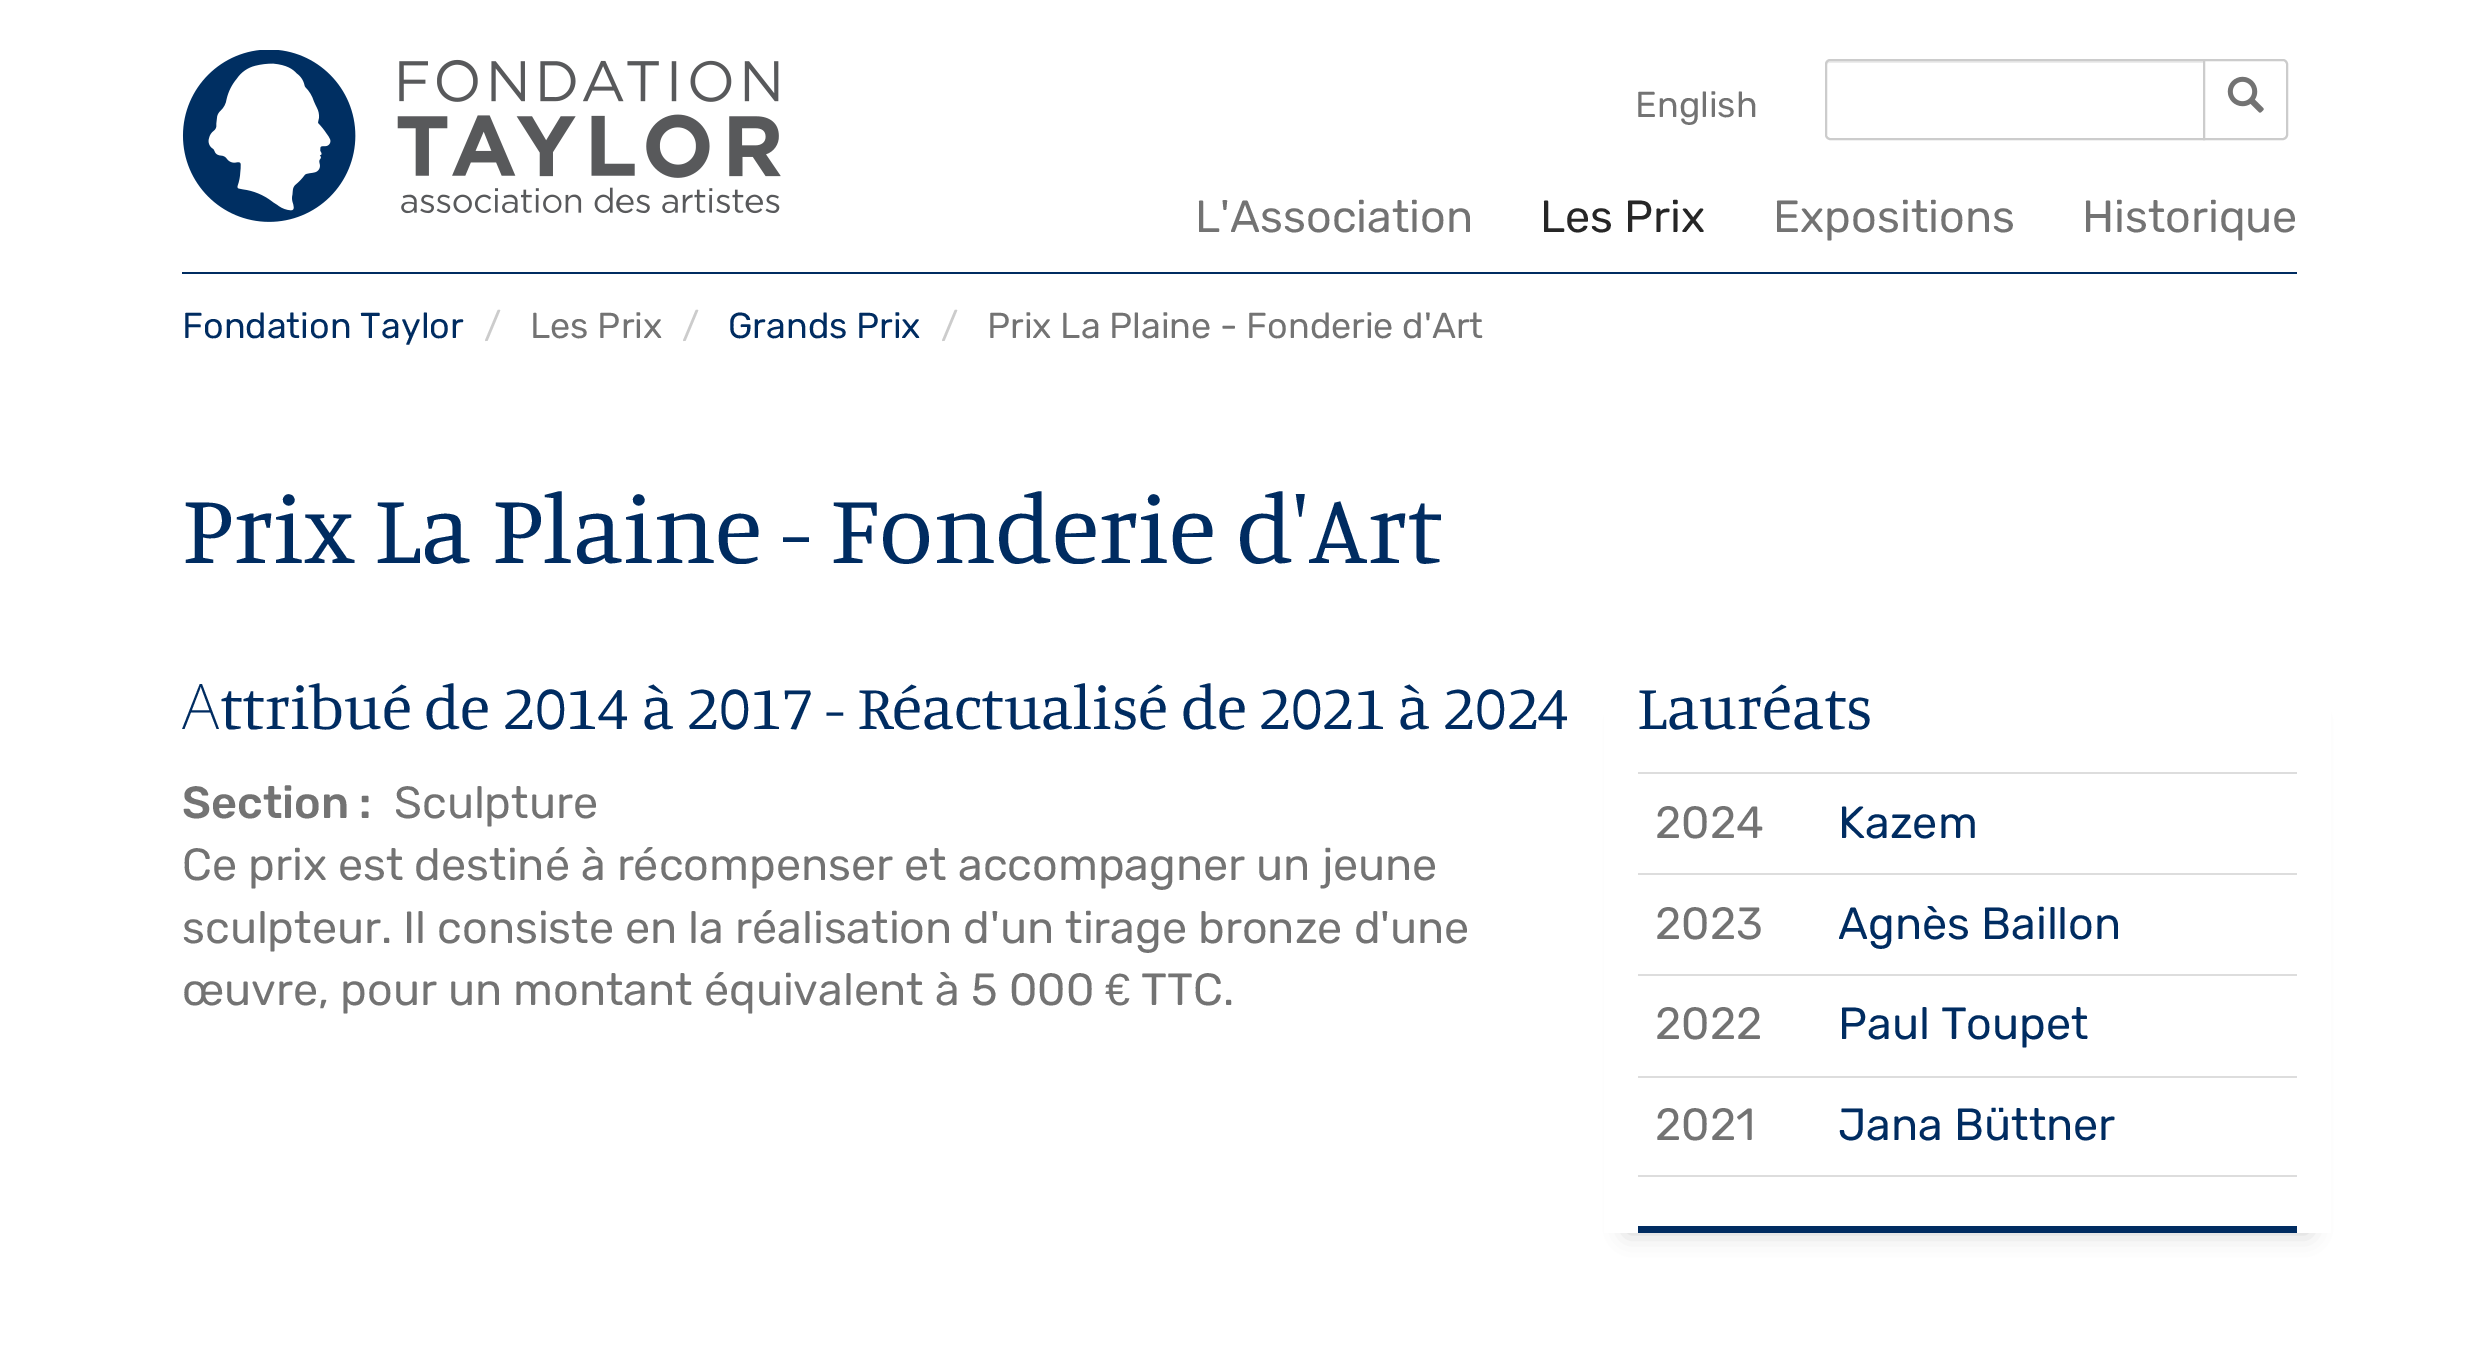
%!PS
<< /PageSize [2478 1350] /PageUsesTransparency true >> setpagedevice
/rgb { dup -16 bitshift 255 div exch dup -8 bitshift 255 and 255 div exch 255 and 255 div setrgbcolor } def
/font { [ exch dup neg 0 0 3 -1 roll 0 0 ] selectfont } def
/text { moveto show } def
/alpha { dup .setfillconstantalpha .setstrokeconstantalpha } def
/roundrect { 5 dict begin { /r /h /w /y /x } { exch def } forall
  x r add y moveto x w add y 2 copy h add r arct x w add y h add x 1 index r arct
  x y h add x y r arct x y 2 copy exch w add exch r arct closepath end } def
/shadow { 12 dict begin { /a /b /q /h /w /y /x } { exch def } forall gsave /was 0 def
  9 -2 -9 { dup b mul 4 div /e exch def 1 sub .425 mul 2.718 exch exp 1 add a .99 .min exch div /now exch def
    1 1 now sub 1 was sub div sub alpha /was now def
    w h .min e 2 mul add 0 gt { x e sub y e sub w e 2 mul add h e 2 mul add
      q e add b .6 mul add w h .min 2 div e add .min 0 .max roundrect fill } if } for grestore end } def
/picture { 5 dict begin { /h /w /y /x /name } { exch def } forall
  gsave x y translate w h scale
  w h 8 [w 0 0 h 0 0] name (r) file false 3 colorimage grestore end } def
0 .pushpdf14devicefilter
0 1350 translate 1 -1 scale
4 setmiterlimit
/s1 { /Rubik-Regular 36 font 16#737373 rgb } def
/s2 { /Rubik-Regular 45 font 16#737373 rgb } def
/s3 { /Rubik-Regular 45 font 16#262626 rgb } def
/s4 { /Rubik-Regular 36 font 16#002C61 rgb } def
/s5 { /Rubik-Regular 36 font 16#CCCCCC rgb } def
/s6 { /Manuale-Regular 99 font 16#002C61 rgb } def
/s7 { /NotoSans-ExtraLight 63 font 16#002C61 rgb } def
/s8 { /Manuale-Regular 63 font 16#002C61 rgb } def
/s9 { /Rubik-Medium 45 font 16#737373 rgb } def
/s10 { /LiberationSans-Regular 45 font 16#737373 rgb } def
/s11 { /Rubik-Regular 45 font 16#002C61 rgb } def
16#FFFFFF rgb
0 0 2478 1350 rectfill
(pic1.raw) 182 50 599 172 picture
s1
(English) 1635 117 text
16#ECECEC rgb
1829 63 moveto 2203 63 lineto 2203 61 lineto 1829 61 lineto 1828 61 1827 62 1827 63 curveto 1827 65 lineto 1827 64 1828 63 1829 63 curveto closepath fill
16#CCCCCC rgb
2 setlinewidth
1830 60 moveto 2204 60 lineto 2204 139 lineto 1830 139 lineto 1828 139 1826 137 1826 135 curveto 1826 64 lineto 1826 62 1828 60 1830 60 curveto closepath stroke
16#FFFFFF rgb
2204 60 moveto 2283 60 lineto 2285 60 2287 62 2287 64 curveto 2287 135 lineto 2287 137 2285 139 2283 139 curveto 2204 139 lineto closepath gsave fill grestore
16#CCCCCC rgb
stroke
(pic2.raw) 2227 76 37 37 picture
s2
(L'Association) 1195 232 text
s3
(Les Prix) 1540 232 text
s2
(Expositions) 1773 232 text
(Historique) 2082 232 text
16#002C61 rgb
182 272 2115 2 rectfill
s4
(Fondation Taylor) 182 338 text
s5
(/) 484 338 text
s1
(Les Prix) 530 338 text
s5
(/) 682 338 text
s4
(Grands Prix) 728 338 text
s5
(/) 941 338 text
s1
(Prix La Plaine - Fonderie d'Art) 987 338 text
s6
(Prix La Plaine - Fonderie d'Art) 182 563 text
s7
(A) 182 729 text
s8
(ttribué de 2014 à 2017 - Réactualisé de 2021 à 2024) 220 729 text
s9
(Section :) 182 818 text
s2
(Sculpture) 394 818 text
(Ce prix est destiné à récompenser et accompagner un jeune) 182 880 text
(sculpteur. Il consiste en la réalisation d'un tirage bronze d'une) 182 943 text
(œuvre, pour un montant équivalent à 5) 182 1005 text
(000) 1009 1005 text
s10
(€) 1105 1005 text
s2
(TTC.) 1141 1005 text
gsave
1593 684 moveto 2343 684 lineto 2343 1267 lineto 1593 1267 lineto closepath 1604 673 moveto 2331 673 lineto 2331 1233 lineto 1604 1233 lineto closepath eoclip newpath
16#CCCCCC rgb
1627 718 682 515 0 11 1 shadow
grestore
s8
(Lauréats) 1637 729 text
1638 1226 659 7 rectfill
s2
(2024) 1655 838 text
16#DDDDDD rgb
1638 772 659 2 rectfill
s11
(Kazem) 1838 838 text
s2
(2023) 1655 939 text
16#DDDDDD rgb
1638 873 659 2 rectfill
s11
(Agnès Baillon) 1838 939 text
s2
(2022) 1655 1039 text
16#DDDDDD rgb
1638 974 659 2 rectfill
s11
(Paul Toupet) 1838 1039 text
s2
(2021) 1655 1140 text
16#DDDDDD rgb
1638 1076 659 2 rectfill
s11
(Jana Büttner) 1838 1140 text
16#DDDDDD rgb
1638 1175 659 2 rectfill
.poppdf14devicefilter showpage
